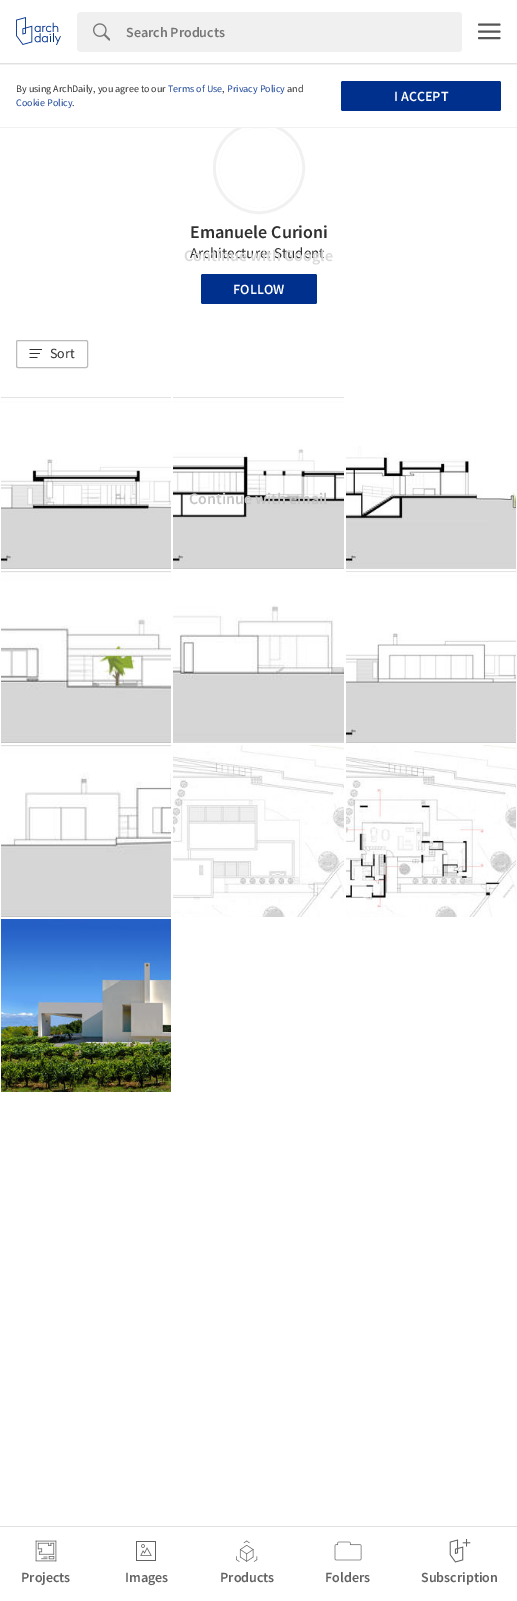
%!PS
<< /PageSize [517 1601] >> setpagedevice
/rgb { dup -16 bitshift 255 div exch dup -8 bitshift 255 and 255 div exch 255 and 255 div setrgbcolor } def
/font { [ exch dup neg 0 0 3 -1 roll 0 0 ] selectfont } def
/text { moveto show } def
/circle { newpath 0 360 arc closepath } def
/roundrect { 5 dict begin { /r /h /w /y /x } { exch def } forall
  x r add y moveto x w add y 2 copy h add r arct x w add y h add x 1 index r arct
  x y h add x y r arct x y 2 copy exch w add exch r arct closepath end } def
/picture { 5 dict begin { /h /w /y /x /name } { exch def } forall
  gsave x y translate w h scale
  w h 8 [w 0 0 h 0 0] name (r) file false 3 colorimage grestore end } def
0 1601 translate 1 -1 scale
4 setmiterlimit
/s1 { /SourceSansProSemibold-SemiBold 14 font 16#767676 rgb } def
/s2 { /SourceSansPro-Regular 10 font 16#303030 rgb } def
/s3 { /SourceSansPro-Regular 10 font 16#1A4599 rgb } def
/s4 { /SourceSansProSemibold-SemiBold 14 font 16#FFFFFF rgb } def
/s5 { /SourceSansProSemibold-SemiBold 18 font 16#303030 rgb } def
/s6 { /SourceSansPro-Regular 15 font 16#303030 rgb } def
/s7 { /SourceSansPro-Regular 14 font 16#303030 rgb } def
/s8 { /SourceSansProSemibold-SemiBold 16 font 16#DADADA rgb } def
/s9 { /SourceSansProSemibold-SemiBold 16 font 16#C5C5C5 rgb } def
/s10 { /SourceSansProSemibold-SemiBold 14 font 16#626262 rgb } def
16#FFFFFF rgb
0 0 517 1601 rectfill
16#E1E1E1 rgb
0 63 517 1 rectfill
(pic1.raw) 16 17 45 28 picture
16#F0F0F0 rgb
77 12 385 40 4 roundrect fill
(pic2.raw) 93 23 17 18 picture
126 12 moveto 458 12 lineto 460 12 462 14 462 16 curveto 462 48 lineto 462 50 460 52 458 52 curveto 126 52 lineto closepath fill
s1
(Search Products) 126 37 text
16#565656 rgb
2 setlinewidth
1 setlinecap
479 24.5 moveto 499.5 24.5 lineto 479 31.5 moveto 499.5 31.5 lineto 479 38 moveto 499.5 38 lineto stroke
16#F1F1F1 rgb
6 setlinewidth
0 setlinecap
259 168 43 circle stroke
16#FFFFFF rgb
3 setlinewidth
259 168 41.5 circle stroke
239 122 40 5 rectfill
16#F1F1F1 rgb
0 64 517 1 rectfill
0 127 517 1 rectfill
s2
(By using ArchDaily, you agree to our) 16 92 text
s3
(Terms of Use) 168 92 text
s2
(,) 222 92 text
s3
(Privacy Policy) 227 92 text
s2
(and) 287 92 text
s3
(Cookie Policy) 16 106 text
s2
(.) 72 106 text
16#00308E rgb
341 81 160 30 2 roundrect fill
s4
(I ACCEPT) 394 101 text
s5
(Emanuele Curioni) 190 238 text
s6
(Architecture: Student) 190 258 text
16#00308E rgb
201 274 116 30 2 roundrect fill
s4
(FOLLOW) 233 294 text
16#BBBBBB rgb
1 setlinewidth
16.5 340.5 71 27 1.5 roundrect stroke
(pic3.raw) 29 349 13 9 picture
s7
(Sort) 50 358 text
(pic4.raw) 1 397 170 172 picture
(pic5.raw) 173 397 171 172 picture
(pic6.raw) 346 446 170 123 picture
(pic7.raw) 1 571 170 172 picture
(pic8.raw) 173 605 171 138 picture
(pic9.raw) 346 571 170 172 picture
(pic10.raw) 1 745 170 172 picture
(pic11.raw) 173 745 171 172 picture
(pic12.raw) 346 745 170 172 picture
(pic13.raw) 1 919 170 173 picture
s8
(Continue with Google) 184 261 text
s9
(Continue with email) 189 504 text
16#E1E1E1 rgb
0 1526 517 1 rectfill
(pic14.raw) 35 1540 22 22 picture
s10
(Projects) 21 1582 text
(pic15.raw) 136 1541 20 20 picture
(Images) 125 1582 text
(pic16.raw) 236 1540 22 22 picture
(Products) 220 1582 text
(pic17.raw) 334 1541 28 20 picture
(Folders) 325 1582 text
(pic18.raw) 449 1539 22 24 picture
(Subscription) 421 1582 text
showpage
